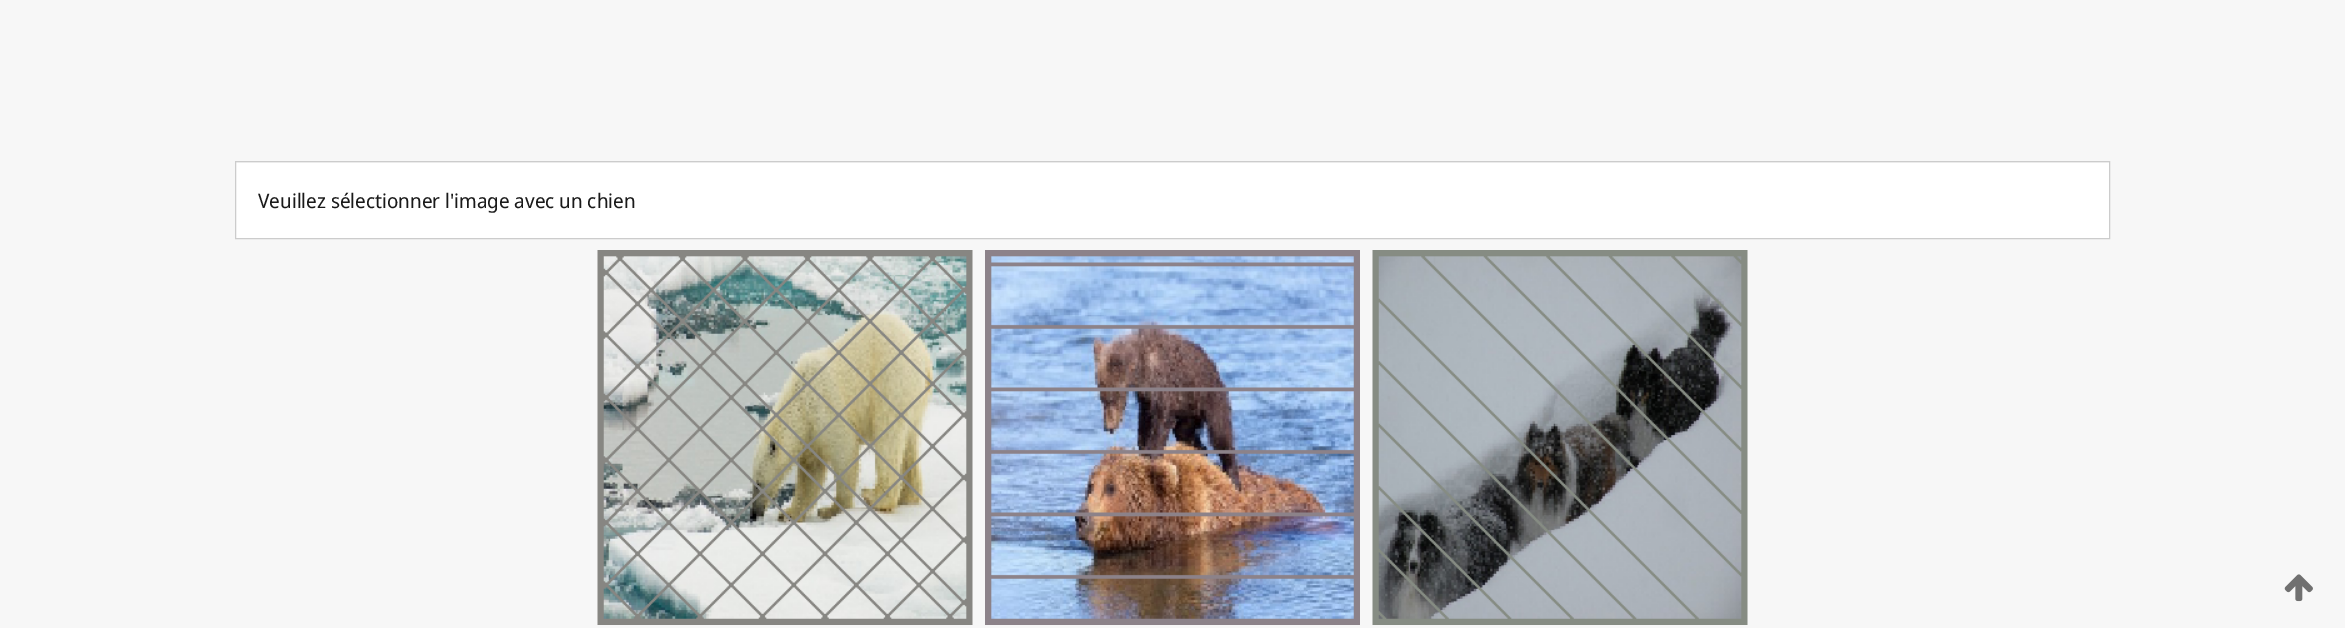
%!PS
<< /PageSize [2345 628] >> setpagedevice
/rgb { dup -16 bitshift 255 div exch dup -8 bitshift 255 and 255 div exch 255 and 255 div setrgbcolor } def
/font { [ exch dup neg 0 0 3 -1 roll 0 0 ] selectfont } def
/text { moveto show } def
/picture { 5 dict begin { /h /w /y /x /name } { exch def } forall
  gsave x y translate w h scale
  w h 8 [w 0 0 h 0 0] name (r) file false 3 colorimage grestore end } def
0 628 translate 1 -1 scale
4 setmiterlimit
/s1 { /NotoSansDisplay-Regular 20 font 16#1A1A1A rgb } def
16#F7F7F7 rgb
0 0 2345 628 rectfill
16#FFFFFF rgb
236 163 1873 75 rectfill
16#CCCCCC rgb
235.5 161.5 1874 77 rectstroke
s1
(Veuillez sélectionner l'image avec un chien) 258 208 text
(pic1.raw) 597 250 376 375 picture
(pic2.raw) 985 250 375 375 picture
(pic3.raw) 1372 250 376 375 picture
(pic4.raw) 2284 574 29 28 picture
showpage
